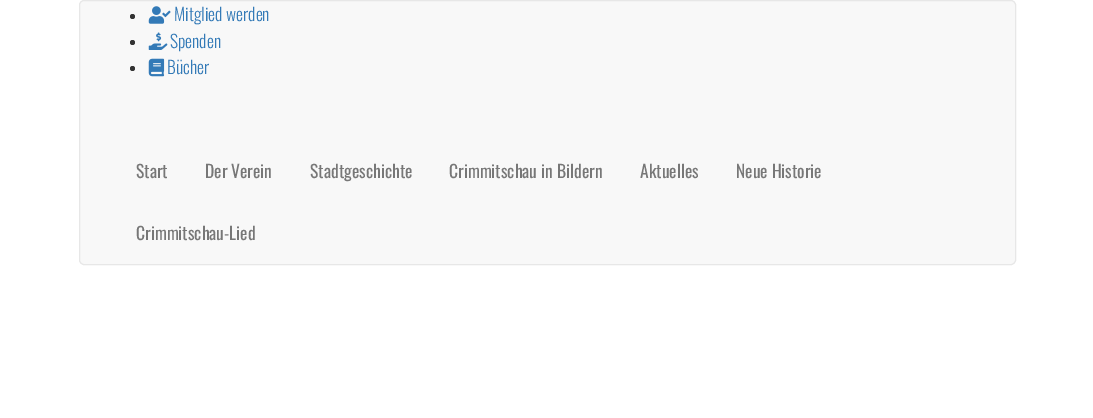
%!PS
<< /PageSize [1093 418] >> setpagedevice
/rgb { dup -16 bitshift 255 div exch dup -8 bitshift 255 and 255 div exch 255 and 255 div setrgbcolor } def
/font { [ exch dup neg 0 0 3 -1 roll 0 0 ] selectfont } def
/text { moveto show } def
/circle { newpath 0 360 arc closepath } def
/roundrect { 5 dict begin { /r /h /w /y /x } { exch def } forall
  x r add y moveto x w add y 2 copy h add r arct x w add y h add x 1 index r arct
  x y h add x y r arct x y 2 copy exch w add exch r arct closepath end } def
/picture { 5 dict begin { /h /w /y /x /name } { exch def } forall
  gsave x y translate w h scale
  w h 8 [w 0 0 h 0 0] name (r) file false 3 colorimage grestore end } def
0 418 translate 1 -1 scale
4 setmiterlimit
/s1 { /Oswald-Light 17.5 font 16#337AB7 rgb } def
/s2 { /Oswald-Regular 17.5 font 16#777777 rgb } def
16#FFFFFF rgb
0 0 1093 418 rectfill
16#F8F8F8 rgb
79.5 0.5 936 264 4.5 roundrect gsave fill grestore
16#E7E7E7 rgb
stroke
16#333333 rgb
132.5 16.5 2.5 circle fill
(pic1.raw) 148 6 23 18 picture
s1
(Mitglied werden) 174 21 text
16#333333 rgb
132.5 42.5 2.5 circle fill
(pic2.raw) 148 32 20 18 picture
s1
(Spenden) 170 48 text
16#333333 rgb
132.5 68.5 2.5 circle fill
(pic3.raw) 148 58 17 19 picture
s1
(Bücher) 167 74 text
s2
(Start) 136 178 text
(Der Verein) 205 178 text
(Stadtgeschichte) 310 178 text
(Crimmitschau in Bildern) 449 178 text
(Aktuelles) 640 178 text
(Neue Historie) 736 178 text
(Crimmitschau-Lied) 136 240 text
showpage
